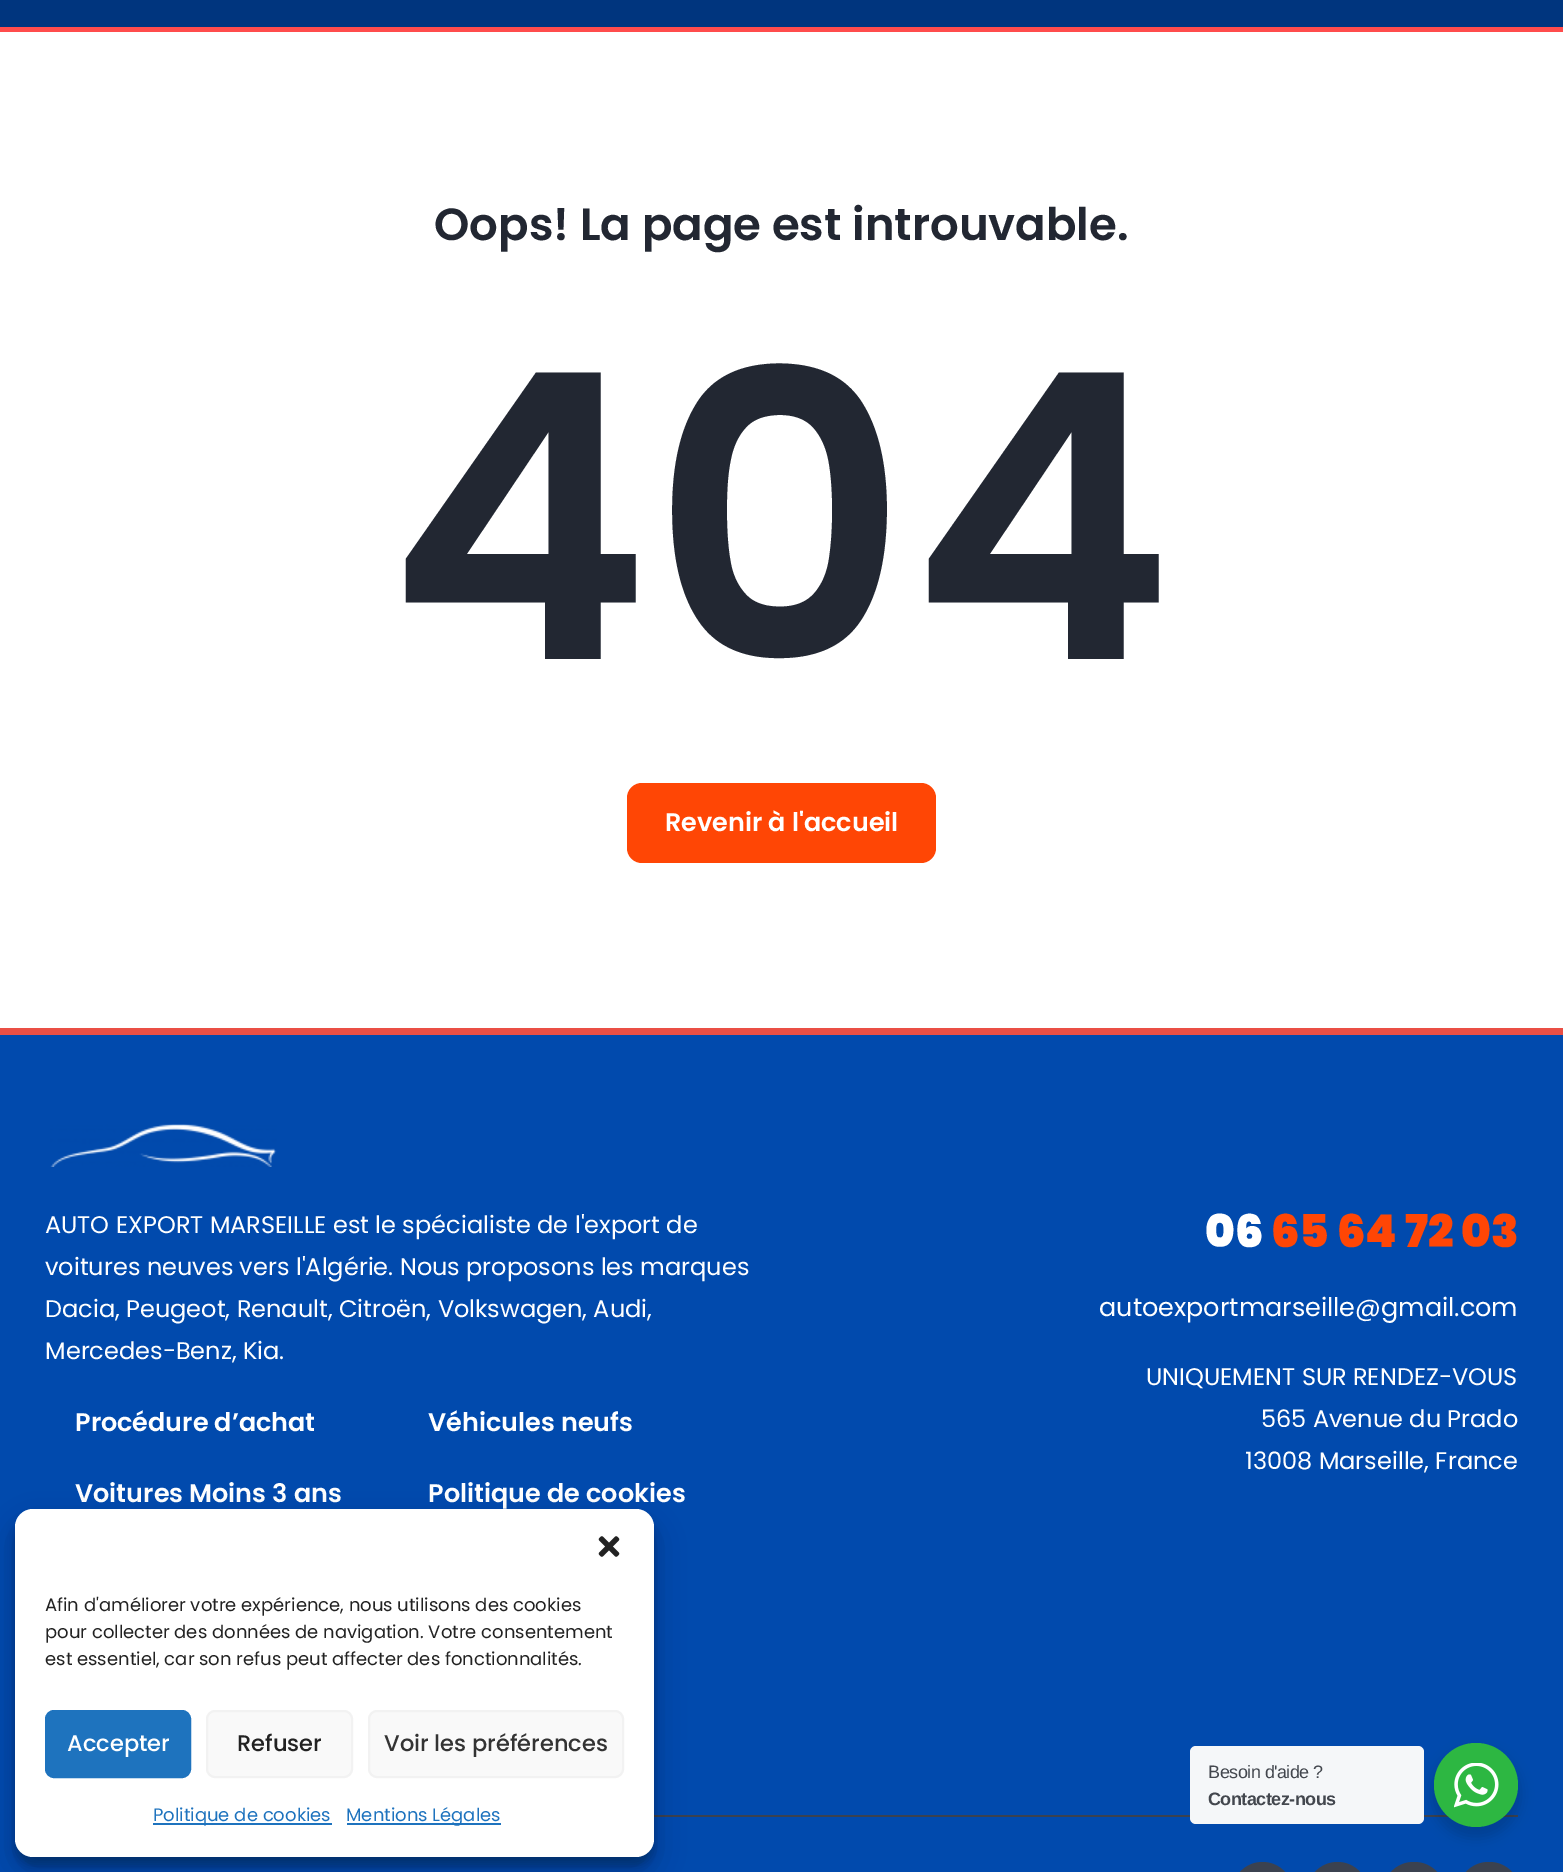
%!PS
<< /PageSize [1563 1872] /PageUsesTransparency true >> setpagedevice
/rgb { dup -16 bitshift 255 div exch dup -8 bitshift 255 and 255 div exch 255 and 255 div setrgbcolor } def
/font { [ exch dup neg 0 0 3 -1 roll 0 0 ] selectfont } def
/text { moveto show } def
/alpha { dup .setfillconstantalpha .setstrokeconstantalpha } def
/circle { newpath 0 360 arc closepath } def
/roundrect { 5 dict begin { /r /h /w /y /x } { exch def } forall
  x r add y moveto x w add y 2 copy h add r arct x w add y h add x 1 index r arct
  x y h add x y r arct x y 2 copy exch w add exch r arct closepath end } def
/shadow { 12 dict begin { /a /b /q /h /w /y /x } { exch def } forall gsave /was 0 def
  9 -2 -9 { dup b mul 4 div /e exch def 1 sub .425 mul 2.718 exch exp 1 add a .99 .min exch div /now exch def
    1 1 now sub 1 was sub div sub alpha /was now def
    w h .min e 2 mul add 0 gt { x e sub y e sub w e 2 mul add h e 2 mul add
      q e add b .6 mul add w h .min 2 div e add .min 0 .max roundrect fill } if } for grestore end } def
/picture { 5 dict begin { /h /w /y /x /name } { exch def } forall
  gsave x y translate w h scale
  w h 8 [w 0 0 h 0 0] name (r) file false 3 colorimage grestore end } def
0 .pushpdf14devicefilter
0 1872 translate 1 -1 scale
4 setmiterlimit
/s1 { /Poppins-SemiBold 45 font 16#222732 rgb } def
/s2 { /Poppins-SemiBold 400 font 16#222732 rgb } def
/s3 { /Poppins-SemiBold 25.5 font 16#FFFFFF rgb } def
/s4 { /Poppins-Regular 24 font 16#FFFFFF rgb } def
/s5 { /Poppins-Black 45 font 16#FFFFFF rgb } def
/s6 { /Poppins-Black 45 font 16#FF4605 rgb } def
/s7 { /Poppins-Regular 25.5 font 16#FFFFFF rgb } def
/s8 { /Poppins-Regular 18 font 16#222222 rgb } def
/s9 { /Poppins-Medium 22.5 font 16#FFFFFF rgb } def
/s10 { /Poppins-Medium 22.5 font 16#222222 rgb } def
/s11 { /Poppins-Medium 22.5 font 16#333333 rgb } def
/s12 { /Poppins-Regular 18 font 16#1E73BE rgb } def
16#FFFFFF rgb
0 0 1563 1872 rectfill
16#00357E rgb
0 0 1563 27 rectfill
16#FF4C4C rgb
0 27 1563 5 rectfill
s1
(Oops! La page est introuvable.) 434 240 text
s2
(404) 387 659 text
16#FF4605 rgb
627 783 309 80 15 roundrect fill
s3
(Revenir à l'accueil) 665 831 text
16#014AAD rgb
0 1035 1563 837 rectfill
16#EA4F45 rgb
0 1028 1563 7 rectfill
(pic1.raw) 50 1124 227 43 picture
s4
(AUTO EXPORT MARSEILLE est le spécialiste de l'export de) 45 1233 text
(voitures neuves vers l'Algérie. Nous proposons les marques) 45 1275 text
(Dacia, Peugeot, Renault, Citroën, Volkswagen, Audi,) 45 1317 text
(Mercedes-Benz, Kia.) 45 1359 text
s3
(Procédure d’achat) 75 1431 text
(Véhicules neufs) 428 1431 text
(Voitures Moins 3 ans) 75 1502 text
(Politique de cookies) 428 1502 text
s5
(06) 1205 1247 text
s6
(65 64 72 03) 1271 1247 text
s7
(autoexportmarseille@gmail.com) 1099 1316 text
s4
(UNIQUEMENT SUR RENDEZ-VOUS) 1146 1385 text
(565 Avenue du Prado) 1261 1427 text
(13008 Marseille, France) 1245 1469 text
16#3B4250 rgb
654 1815 864 2 rectfill
1232 1862 61 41 30.5 roundrect fill
1307 1862 61 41 30.5 roundrect fill
1383 1862 62 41 30.5 roundrect fill
1458 1862 62 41 30.5 roundrect fill
16#000000 rgb
15 1518 639 348 18 4.5 0.23 shadow
15 1524 639 348 18 15 0.19 shadow
16#FFFFFF rgb
15 1509 639 348 18 roundrect fill
(pic2.raw) 598 1536 22 21 picture
s8
(Afin d'améliorer votre expérience, nous utilisons des cookies) 45 1611 text
(pour collecter des données de navigation. Votre consentement) 45 1638 text
(est essentiel, car son refus peut affecter des fonctionnalités.) 45 1665 text
16#1E73BE rgb
46 1711 144 66 8 roundrect gsave fill grestore
2 setlinewidth
stroke
s9
(Accepter) 67 1751 text
16#F9F9F9 rgb
207 1711 145 66 8 roundrect gsave fill grestore
16#F2F2F2 rgb
stroke
s10
(Refuser) 237 1751 text
16#F9F9F9 rgb
369 1711 254 66 8 roundrect gsave fill grestore
16#F2F2F2 rgb
stroke
s11
(Voir les préférences) 384 1751 text
16#1E73BE rgb
153 1823 179 2 rectfill
s12
(Politique de cookies) 153 1821 text
347 1823 154 2 rectfill
(Mentions Légales) 346 1821 text
16#000000 rgb
1431 1749 90 90 45 6 0.14 shadow
16#F5F7F9 rgb
1190 1746 234 78 6 roundrect fill
/LiberationSans-Regular 18 font
16#43474E rgb
1208 1778 moveto -0.5 0 (Besoin d'aide ?) ashow
/LiberationSans-Bold 18 font
1208 1805 moveto -0.5 0 (Contactez-nous) ashow
16#2DB742 rgb
1476 1785 42 circle fill
(pic3.raw) 1454 1763 45 45 picture
.poppdf14devicefilter showpage
